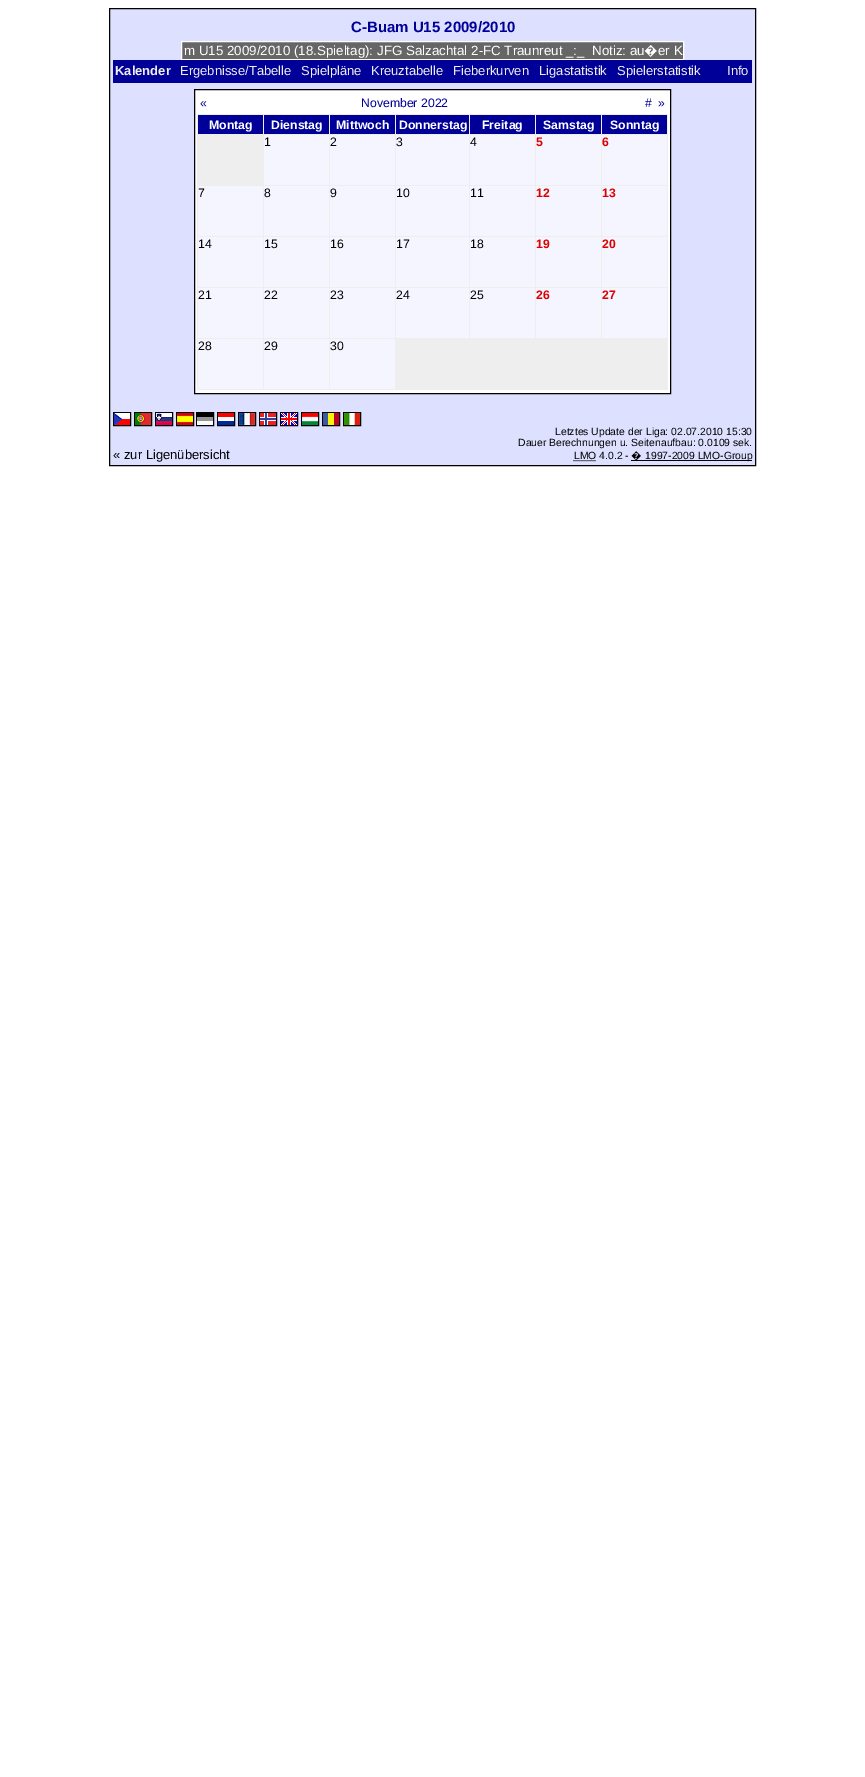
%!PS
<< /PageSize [865 1777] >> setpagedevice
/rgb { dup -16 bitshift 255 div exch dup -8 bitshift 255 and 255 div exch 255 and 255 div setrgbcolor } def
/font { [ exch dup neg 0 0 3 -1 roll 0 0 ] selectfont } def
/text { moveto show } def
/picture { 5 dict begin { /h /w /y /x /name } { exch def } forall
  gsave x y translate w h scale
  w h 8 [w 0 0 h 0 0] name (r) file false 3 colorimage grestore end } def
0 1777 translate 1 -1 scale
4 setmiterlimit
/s1 { /LiberationSans-Bold 15 font 16#000099 rgb } def
/s2 { /LiberationSans-Regular 13.35 font 16#FFFFFF rgb } def
/s3 { /NotoSans-Regular 13.35 font 16#FFFFFF rgb } def
/s4 { /LiberationSans-Bold 13 font 16#EEEEEE rgb } def
/s5 { /LiberationSans-Regular 13 font 16#EEEEEE rgb } def
/s6 { /LiberationSans-Regular 12.25 font 16#000099 rgb } def
/s7 { /LiberationSans-Bold 12.25 font 16#FFFFFF rgb } def
/s8 { /LiberationSans-Regular 12.25 font 16#000000 rgb } def
/s9 { /LiberationSans-Bold 12.25 font 16#DD0000 rgb } def
/s10 { /LiberationSans-Regular 13 font 16#000000 rgb } def
/s11 { /LiberationSans-Regular 10.4 font 16#000000 rgb } def
/s12 { /NotoSans-Regular 10.4 font 16#000000 rgb } def
16#FFFFFF rgb
0 0 865 1777 rectfill
16#DDE0FF rgb
109.5 8.5 moveto 755.5 8.5 lineto 755.5 465.5 lineto 109.5 465.5 lineto closepath gsave fill grestore
16#000000 rgb
stroke
s1
(C-Buam U15 2009/2010) 351 32 text
16#666666 rgb
181.5 41.5 moveto 683.5 41.5 lineto 683.5 59.5 lineto 181.5 59.5 lineto closepath gsave fill grestore
16#FFFFFF rgb
stroke
s2
(m U15 2009/2010 \(18.Spieltag\): JFG Salzachtal 2-FC Traunreut _:_  Notiz: au) 184 55 text
s3
(�) 644 55 text
s2
(er K) 658 55 text
16#000099 rgb
113 60 639 23 rectfill
s4
(Kalender) 115 75 text
s5
(Ergebnisse/Tabelle) 180 75 text
(Spielpläne) 301 75 text
(Kreuztabelle) 371 75 text
(Fieberkurven) 453 75 text
(Ligastatistik) 539 75 text
(Spielerstatistik) 617 75 text
(Info) 727 75 text
16#FFFFFF rgb
194.5 89.5 moveto 670.5 89.5 lineto 670.5 393.5 lineto 194.5 393.5 lineto closepath gsave fill grestore
16#000000 rgb
stroke
s6
(«) 200 107 text
(November 2022) 361 107 text
(#) 645 107 text
(») 658 107 text
16#F5F5FF rgb
198 135 469 254 rectfill
16#000099 rgb
198 115 65 19 rectfill
16#EEEEEE rgb
601 114 67 1 rectfill
601 134 67 1 rectfill
601 185 67 1 rectfill
601 236 67 1 rectfill
601 287 67 1 rectfill
395 338 273 1 rectfill
601 287 1 52 rectfill
535 287 67 1 rectfill
601 236 1 52 rectfill
535 236 67 1 rectfill
601 185 1 52 rectfill
535 185 67 1 rectfill
601 134 1 52 rectfill
535 134 67 1 rectfill
601 114 1 21 rectfill
535 114 67 1 rectfill
535 287 1 52 rectfill
469 287 67 1 rectfill
535 236 1 52 rectfill
469 236 67 1 rectfill
535 185 1 52 rectfill
469 185 67 1 rectfill
535 134 1 52 rectfill
469 134 67 1 rectfill
535 114 1 21 rectfill
469 114 67 1 rectfill
469 287 1 52 rectfill
395 287 75 1 rectfill
469 236 1 52 rectfill
395 236 75 1 rectfill
469 185 1 52 rectfill
395 185 75 1 rectfill
469 134 1 52 rectfill
395 134 75 1 rectfill
469 114 1 21 rectfill
395 114 75 1 rectfill
667 338 1 52 rectfill
395 389 273 1 rectfill
395 338 1 52 rectfill
329 338 67 1 rectfill
395 287 1 52 rectfill
329 287 67 1 rectfill
395 236 1 52 rectfill
329 236 67 1 rectfill
395 185 1 52 rectfill
329 185 67 1 rectfill
395 134 1 52 rectfill
329 134 67 1 rectfill
395 114 1 21 rectfill
329 114 67 1 rectfill
329 389 67 1 rectfill
329 338 1 52 rectfill
263 338 67 1 rectfill
329 287 1 52 rectfill
263 287 67 1 rectfill
329 236 1 52 rectfill
263 236 67 1 rectfill
329 185 1 52 rectfill
263 185 67 1 rectfill
329 134 1 52 rectfill
197 134 133 1 rectfill
329 114 1 21 rectfill
263 114 67 1 rectfill
263 114 1 21 rectfill
197 114 67 1 rectfill
263 389 67 1 rectfill
263 338 1 52 rectfill
197 338 67 1 rectfill
263 287 1 52 rectfill
197 287 67 1 rectfill
263 236 1 52 rectfill
197 236 67 1 rectfill
263 185 1 52 rectfill
197 185 67 1 rectfill
197 389 67 1 rectfill
197 338 1 52 rectfill
197 287 1 52 rectfill
197 236 1 52 rectfill
197 185 1 52 rectfill
197 134 1 52 rectfill
197 114 1 21 rectfill
s7
(Montag) 209 129 text
16#000099 rgb
264 115 65 19 rectfill
s7
(Dienstag) 271 129 text
16#000099 rgb
330 115 65 19 rectfill
s7
(Mittwoch) 336 129 text
16#000099 rgb
396 115 73 19 rectfill
s7
(Donnerstag) 399 129 text
16#000099 rgb
470 115 65 19 rectfill
s7
(Freitag) 482 129 text
16#000099 rgb
536 115 65 19 rectfill
s7
(Samstag) 543 129 text
16#000099 rgb
602 115 65 19 rectfill
16#EEEEEE rgb
667 287 1 52 rectfill
667 236 1 52 rectfill
667 185 1 52 rectfill
667 134 1 52 rectfill
667 114 1 21 rectfill
s7
(Sonntag) 610 129 text
16#EEEEEE rgb
198 135 66 50 rectfill
s8
(1) 264 146 text
(2) 330 146 text
(3) 396 146 text
(4) 470 146 text
s9
(5) 536 146 text
(6) 602 146 text
s8
(7) 198 197 text
(8) 264 197 text
(9) 330 197 text
(10) 396 197 text
(11) 470 197 text
s9
(12) 536 197 text
(13) 602 197 text
s8
(14) 198 248 text
(15) 264 248 text
(16) 330 248 text
(17) 396 248 text
(18) 470 248 text
s9
(19) 536 248 text
(20) 602 248 text
s8
(21) 198 299 text
(22) 264 299 text
(23) 330 299 text
(24) 396 299 text
(25) 470 299 text
s9
(26) 536 299 text
(27) 602 299 text
16#EEEEEE rgb
396 339 271 50 rectfill
s8
(28) 198 350 text
(29) 264 350 text
(30) 330 350 text
113.5 412.5 17 13 rectstroke
134.5 412.5 17 13 rectstroke
155.5 412.5 17 13 rectstroke
176.5 412.5 17 13 rectstroke
196.5 412.5 17 13 rectstroke
217.5 412.5 17 13 rectstroke
238.5 412.5 17 13 rectstroke
259.5 412.5 17 13 rectstroke
280.5 412.5 17 13 rectstroke
301.5 412.5 17 13 rectstroke
322.5 412.5 17 13 rectstroke
343.5 412.5 17 13 rectstroke
(pic1.raw) 114 413 16 12 picture
(pic2.raw) 135 413 16 12 picture
(pic3.raw) 156 413 16 12 picture
(pic4.raw) 177 413 16 12 picture
(pic5.raw) 197 413 16 12 picture
(pic6.raw) 218 413 16 12 picture
(pic7.raw) 239 413 16 12 picture
(pic8.raw) 260 413 16 12 picture
(pic9.raw) 281 413 16 12 picture
(pic10.raw) 302 413 16 12 picture
(pic11.raw) 323 413 16 12 picture
(pic12.raw) 344 413 16 12 picture
s10
(« zur Ligenübersicht) 113 459 text
s11
(Letztes Update der Liga: 02.07.2010 15:30) 555 435 text
(Dauer Berechnungen u. Seitenaufbau: 0.0109 sek.) 518 446 text
(LMO 4.0.2 -) 574 459 text
[1 1] 0 setdash
573.5 460.5 moveto 596 460.5 lineto stroke
631 460 121 1 rectfill
s12
(�) 631 459 text
s11
(1997-2009 LMO-Group) 645 459 text
showpage
